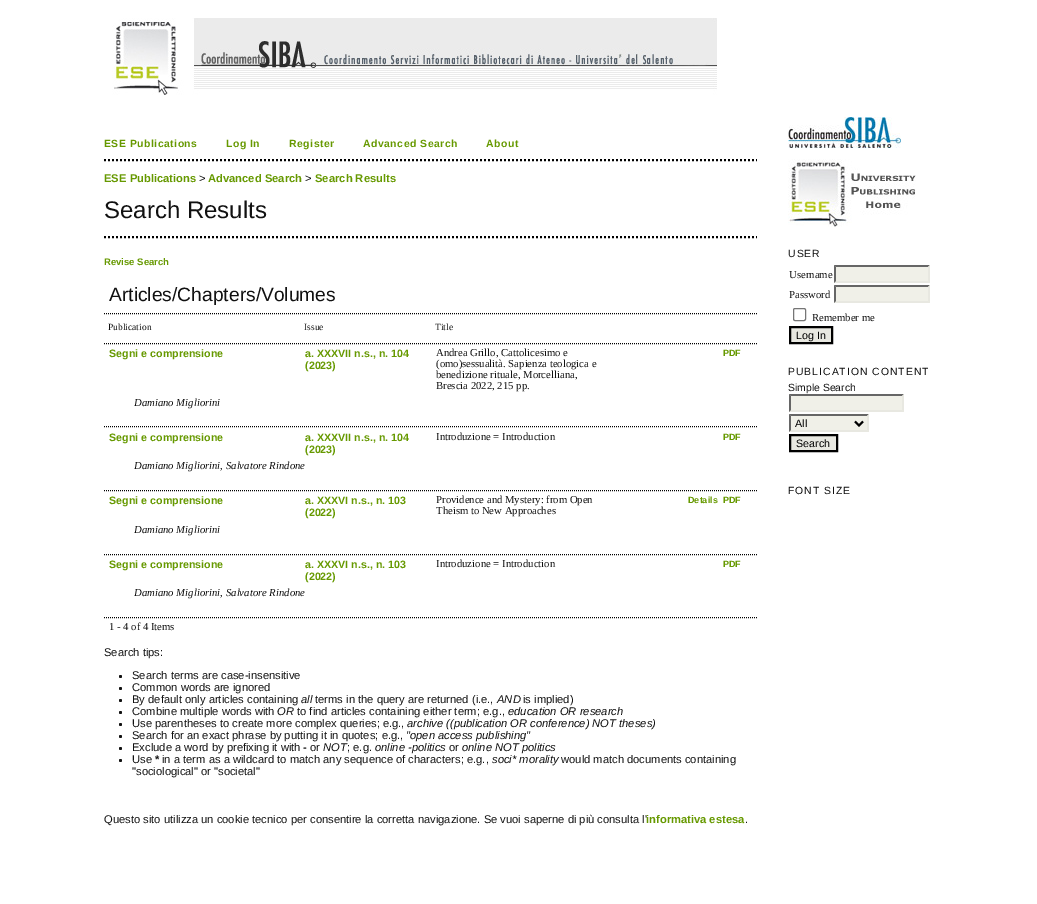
%!PS
<< /PageSize [1037 904] >> setpagedevice
/rgb { dup -16 bitshift 255 div exch dup -8 bitshift 255 and 255 div exch 255 and 255 div setrgbcolor } def
/font { [ exch dup neg 0 0 3 -1 roll 0 0 ] selectfont } def
/text { moveto show } def
/circle { newpath 0 360 arc closepath } def
/roundrect { 5 dict begin { /r /h /w /y /x } { exch def } forall
  x r add y moveto x w add y 2 copy h add r arct x w add y h add x 1 index r arct
  x y h add x y r arct x y 2 copy exch w add exch r arct closepath end } def
/picture { 5 dict begin { /h /w /y /x /name } { exch def } forall
  gsave x y translate w h scale
  w h 8 [w 0 0 h 0 0] name (r) file false 3 colorimage grestore end } def
0 904 translate 1 -1 scale
4 setmiterlimit
/s1 { /LiberationSans-Bold 11.2 font 16#669900 rgb } def
/s2 { /LiberationSans-Regular 11.2 font 16#111111 rgb } def
/s3 { /LiberationSans-Regular 24 font 16#111111 rgb } def
/s4 { /LiberationSans-Bold 9.5 font 16#669900 rgb } def
/s5 { /LiberationSans-Regular 19.25 font 16#111111 rgb } def
/s6 { /LiberationSerif-Regular 9.5 font 16#111111 rgb } def
/s7 { /LiberationSans-Bold 10.7 font 16#669900 rgb } def
/s8 { /LiberationSerif-Regular 10.7 font 16#111111 rgb } def
/s9 { /LiberationSans-Bold 9 font 16#669900 rgb } def
/s10 { /LiberationSerif-Italic 10.7 font 16#111111 rgb } def
/s11 { /LiberationSans-Italic 11.2 font 16#111111 rgb } def
/s12 { /LiberationSans-Bold 11.2 font 16#111111 rgb } def
/s13 { /LiberationSans-Regular 10.7 font 16#000000 rgb } def
/s14 { /LiberationSans-Regular 10.4 font 16#111111 rgb } def
16#FFFFFF rgb
0 0 1037 904 rectfill
(pic1.raw) 112 18 605 77 picture
16#000000 rgb
2 setlinewidth
[2 2] 0 setdash
104 160 moveto 757 160 lineto stroke
/LiberationSans-Bold 10.4 font
16#669900 rgb
104 147 moveto 0.5 0 (ESE Publications) ashow
226 147 moveto 0.5 0 (Log In) ashow
289 147 moveto 0.5 0 (Register) ashow
363 147 moveto 0.5 0 (Advanced Search) ashow
486 147 moveto 0.5 0 (About) ashow
s1
(ESE Publications) 104 182 text
s2
(>) 199 182 text
s1
(Advanced Search) 208 182 text
s2
(>) 305 182 text
s1
(Search Results) 315 182 text
s3
(Search Results) 104 218 text
16#000000 rgb
104 237 moveto 757 237 lineto stroke
s4
(Revise Search) 104 265 text
s5
(Articles/Chapters/Volumes) 109 301 text
16#000000 rgb
1 setlinewidth
[1 1] 0 setdash
104 313.5 moveto 757 313.5 lineto stroke
s6
(Publication) 108 330 text
(Issue) 304 330 text
(Title) 435 330 text
16#000000 rgb
104 343.5 moveto 757 343.5 lineto stroke
s7
(Segni e comprensione) 109 357 text
(a. XXXVII n.s., n. 104) 305 357 text
(\(2023\)) 305 369 text
s8
(Andrea Grillo, Cattolicesimo e) 436 356 text
(\(omo\)sessualità. Sapienza teologica e) 436 367 text
(benedizione rituale, Morcelliana,) 436 378 text
(Brescia 2022, 215 pp.) 436 389 text
s9
(PDF) 723 356 text
s10
(Damiano Migliorini) 134 406 text
16#000000 rgb
104 426.5 moveto 757 426.5 lineto stroke
s7
(Segni e comprensione) 109 441 text
(a. XXXVII n.s., n. 104) 305 441 text
(\(2023\)) 305 453 text
s8
(Introduzione = Introduction) 436 440 text
s9
(PDF) 723 440 text
s10
(Damiano Migliorini, Salvatore Rindone) 134 469 text
16#000000 rgb
104 490.5 moveto 757 490.5 lineto stroke
s7
(Segni e comprensione) 109 504 text
(a. XXXVI n.s., n. 103) 305 504 text
(\(2022\)) 305 516 text
s8
(Providence and Mystery: from Open) 436 503 text
(Theism to New Approaches) 436 514 text
s9
(Details) 688 503 text
(PDF) 723 503 text
s10
(Damiano Migliorini) 134 533 text
16#000000 rgb
104 554.5 moveto 757 554.5 lineto stroke
s7
(Segni e comprensione) 109 568 text
(a. XXXVI n.s., n. 103) 305 568 text
(\(2022\)) 305 580 text
s8
(Introduzione = Introduction) 436 567 text
s9
(PDF) 723 567 text
s10
(Damiano Migliorini, Salvatore Rindone) 134 596 text
16#000000 rgb
104 617.5 moveto 757 617.5 lineto stroke
s8
(1 - 4 of 4 Items) 109 630 text
s2
(Search tips:) 104 656 text
120.5 676.5 1.5 circle fill
(Search terms are case-insensitive) 132 679 text
120.5 688.5 1.5 circle fill
(Common words are ignored) 132 691 text
120.5 700.5 1.5 circle fill
(By default only articles containing) 132 703 text
s11
(all) 301 703 text
s2
(terms in the query are returned \(i.e.,) 315 703 text
s11
(AND) 497 703 text
s2
(is implied\)) 523 703 text
120.5 712.5 1.5 circle fill
(Combine multiple words with) 132 715 text
s11
(OR) 277 715 text
s2
(to find articles containing either term; e.g.,) 297 715 text
s11
(education OR research) 508 715 text
120.5 724.5 1.5 circle fill
s2
(Use parentheses to create more complex queries; e.g.,) 132 727 text
s11
(archive \(\(publication OR conference\) NOT theses\)) 407 727 text
120.5 736.5 1.5 circle fill
s2
(Search for an exact phrase by putting it in quotes; e.g.,) 132 739 text
s11
("open access publishing") 406 739 text
120.5 748.5 1.5 circle fill
s2
(Exclude a word by prefixing it with) 132 751 text
s12
(-) 303 751 text
s2
(or) 310 751 text
s11
(NOT) 323 751 text
s2
(; e.g.) 347 751 text
s11
(online -politics) 375 751 text
s2
(or) 449 751 text
s11
(online NOT politics) 462 751 text
s2
(Use) 132 763 text
s12
(*) 155 763 text
s2
(in a term as a wildcard to match any sequence of characters; e.g.,) 162 763 text
s11
(soci* morality) 492 763 text
s2
(would match documents containing) 561 763 text
120.5 760.5 1.5 circle fill
("sociological" or "societal") 132 775 text
(Questo sito utilizza un cookie tecnico per consentire la corretta navigazione. Se vuoi saperne di più consulta l') 104 823 text
s1
(informativa estesa) 646 823 text
s2
(.) 745 823 text
(pic2.raw) 788 117 113 31 picture
(pic3.raw) 788 159 128 68 picture
/LiberationSans-Regular 10.4 font
788 257 moveto 1 0 (USER) ashow
s8
(Username) 789 278 text
16#F0F0E8 rgb
834 265 96 18 rectfill
16#666666 rgb
834 265 moveto 930 265 lineto 928 267 lineto 836 267 lineto closepath fill
16#E8E8E1 rgb
930 265 moveto 930 283 lineto 928 281 lineto 928 267 lineto closepath fill
930 283 moveto 834 283 lineto 836 281 lineto 928 281 lineto closepath fill
16#666666 rgb
834 283 moveto 834 265 lineto 836 267 lineto 836 281 lineto closepath fill
s8
(Password) 789 298 text
16#F0F0E8 rgb
834 285 96 18 rectfill
16#666666 rgb
834 285 moveto 930 285 lineto 928 287 lineto 836 287 lineto closepath fill
16#E8E8E1 rgb
930 285 moveto 930 303 lineto 928 301 lineto 928 287 lineto closepath fill
930 303 moveto 834 303 lineto 836 301 lineto 928 301 lineto closepath fill
16#666666 rgb
834 303 moveto 834 285 lineto 836 287 lineto 836 301 lineto closepath fill
16#767676 rgb
[] 0 setdash
793.5 308.5 12 12 1.5 roundrect stroke
s8
(Remember me) 812 321 text
16#E8E8E1 rgb
790 327 moveto 832 327 lineto 832 343 lineto 790 343 lineto closepath gsave fill grestore
16#000000 rgb
2 setlinewidth
stroke
s13
(Log In) 796 339 text
/LiberationSans-Regular 10.4 font
16#111111 rgb
788 375 moveto 1 0 (PUBLICATION CONTENT) ashow
(Simple Search) 788 391 text
16#F0F0E8 rgb
789 394 115 18 rectfill
16#666666 rgb
789 394 moveto 904 394 lineto 902 396 lineto 791 396 lineto closepath fill
16#E8E8E1 rgb
904 394 moveto 904 412 lineto 902 410 lineto 902 396 lineto closepath fill
904 412 moveto 789 412 lineto 791 410 lineto 902 410 lineto closepath fill
16#666666 rgb
789 412 moveto 789 394 lineto 791 396 lineto 791 410 lineto closepath fill
16#F0F0E8 rgb
789 414 80 18 rectfill
16#666666 rgb
789 414 moveto 869 414 lineto 867 416 lineto 791 416 lineto closepath fill
16#E8E8E1 rgb
869 414 moveto 869 432 lineto 867 430 lineto 867 416 lineto closepath fill
869 432 moveto 789 432 lineto 791 430 lineto 867 430 lineto closepath fill
16#666666 rgb
789 432 moveto 789 414 lineto 791 416 lineto 791 430 lineto closepath fill
16#000000 rgb
855 421.5 moveto 859 425.5 lineto 863 421.5 lineto stroke
s13
(All) 795 427 text
16#E8E8E1 rgb
790 435 moveto 837 435 lineto 837 451 lineto 790 451 lineto closepath gsave fill grestore
16#000000 rgb
stroke
(Search) 796 447 text
/LiberationSans-Regular 10.4 font
16#111111 rgb
788 494 moveto 1 0 (FONT SIZE) ashow
showpage
